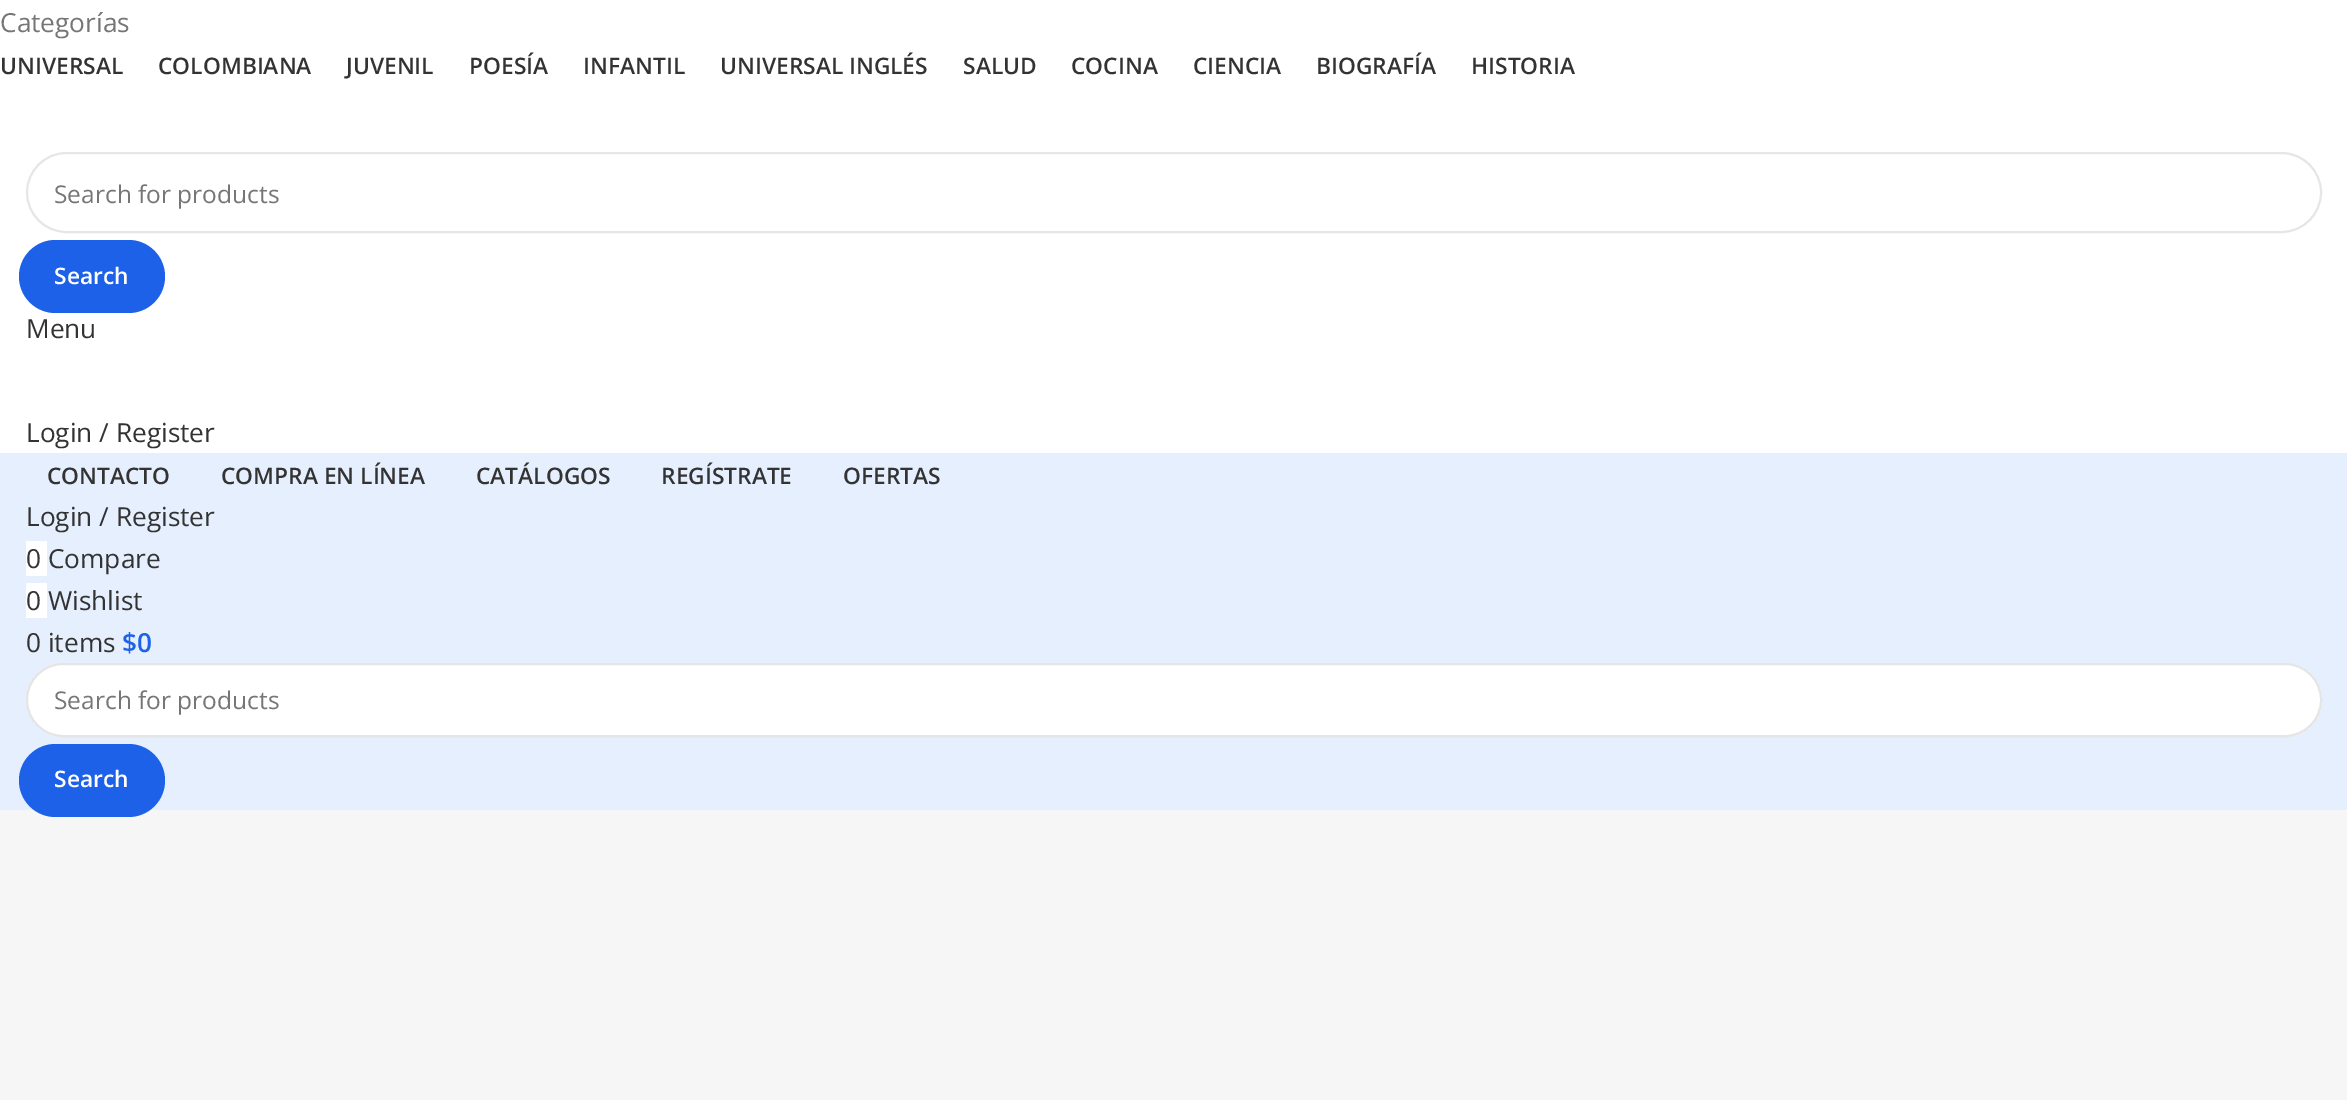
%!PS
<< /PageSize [2347 1100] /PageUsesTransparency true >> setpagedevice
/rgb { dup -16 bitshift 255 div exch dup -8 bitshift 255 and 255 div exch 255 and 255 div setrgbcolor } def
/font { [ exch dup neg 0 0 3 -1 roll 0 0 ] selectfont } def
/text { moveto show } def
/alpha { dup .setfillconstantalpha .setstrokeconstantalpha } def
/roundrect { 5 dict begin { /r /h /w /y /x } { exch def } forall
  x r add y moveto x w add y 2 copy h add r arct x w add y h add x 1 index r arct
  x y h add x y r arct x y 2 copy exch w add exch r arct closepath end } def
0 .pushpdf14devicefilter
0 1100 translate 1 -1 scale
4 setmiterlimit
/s1 { /OpenSans-Regular 26.25 font 16#767676 rgb } def
/s2 { /OpenSans-SemiBold 22.75 font 16#333333 rgb } def
/s3 { /OpenSans-Regular 24.5 font 16#767676 rgb } def
/s4 { /OpenSans-SemiBold 22.75 font 16#FFFFFF rgb } def
/s5 { /OpenSans-Regular 26.25 font 16#333333 rgb } def
/s6 { /OpenSans-SemiBold 26.25 font 16#1C61E7 rgb } def
16#FFFFFF rgb
0 0 2347 1100 rectfill
s1
(Categorías) 0 32 text
s2
(UNIVERSAL) 0 74 text
(COLOMBIANA) 158 74 text
(JUVENIL) 346 74 text
(POESÍA) 469 74 text
(INFANTIL) 583 74 text
(UNIVERSAL INGLÉS) 720 74 text
(SALUD) 963 74 text
(COCINA) 1071 74 text
(CIENCIA) 1193 74 text
(BIOGRAFÍA) 1316 74 text
(HISTORIA) 1471 74 text
16#E6E6E6 rgb
2 setlinewidth
27 153 2294 79 39.5 roundrect stroke
s3
(Search for products) 54 203 text
16#1C61E7 rgb
19 240 146 73 36.5 roundrect fill
s4
(Search) 54 284 text
s5
(Menu) 26 338 text
(Login / Register) 26 442 text
16#E6EFFD rgb
0 453 2347 357 rectfill
s2
(CONTACTO) 47 484 text
(COMPRA EN LÍNEA) 221 484 text
(CATÁLOGOS) 476 484 text
(REGÍSTRATE) 661 484 text
(OFERTAS) 843 484 text
s5
(Login / Register) 26 526 text
16#FFFFFF rgb
26 541 21 35 rectfill
s5
(0 Compare) 26 568 text
16#FFFFFF rgb
26 583 21 35 rectfill
s5
(0 Wishlist) 26 610 text
(0 items) 26 652 text
s6
($0) 122 652 text
16#FFFFFF rgb
26 663 2296 74 37 roundrect fill
0.1 alpha
16#000000 rgb
27 664 2294 72 36 roundrect stroke
1 alpha
s3
(Search for products) 54 709 text
16#F6F6F6 rgb
0 810 2347 290 rectfill
16#1C61E7 rgb
19 744 146 73 36.5 roundrect fill
s4
(Search) 54 787 text
.poppdf14devicefilter showpage
